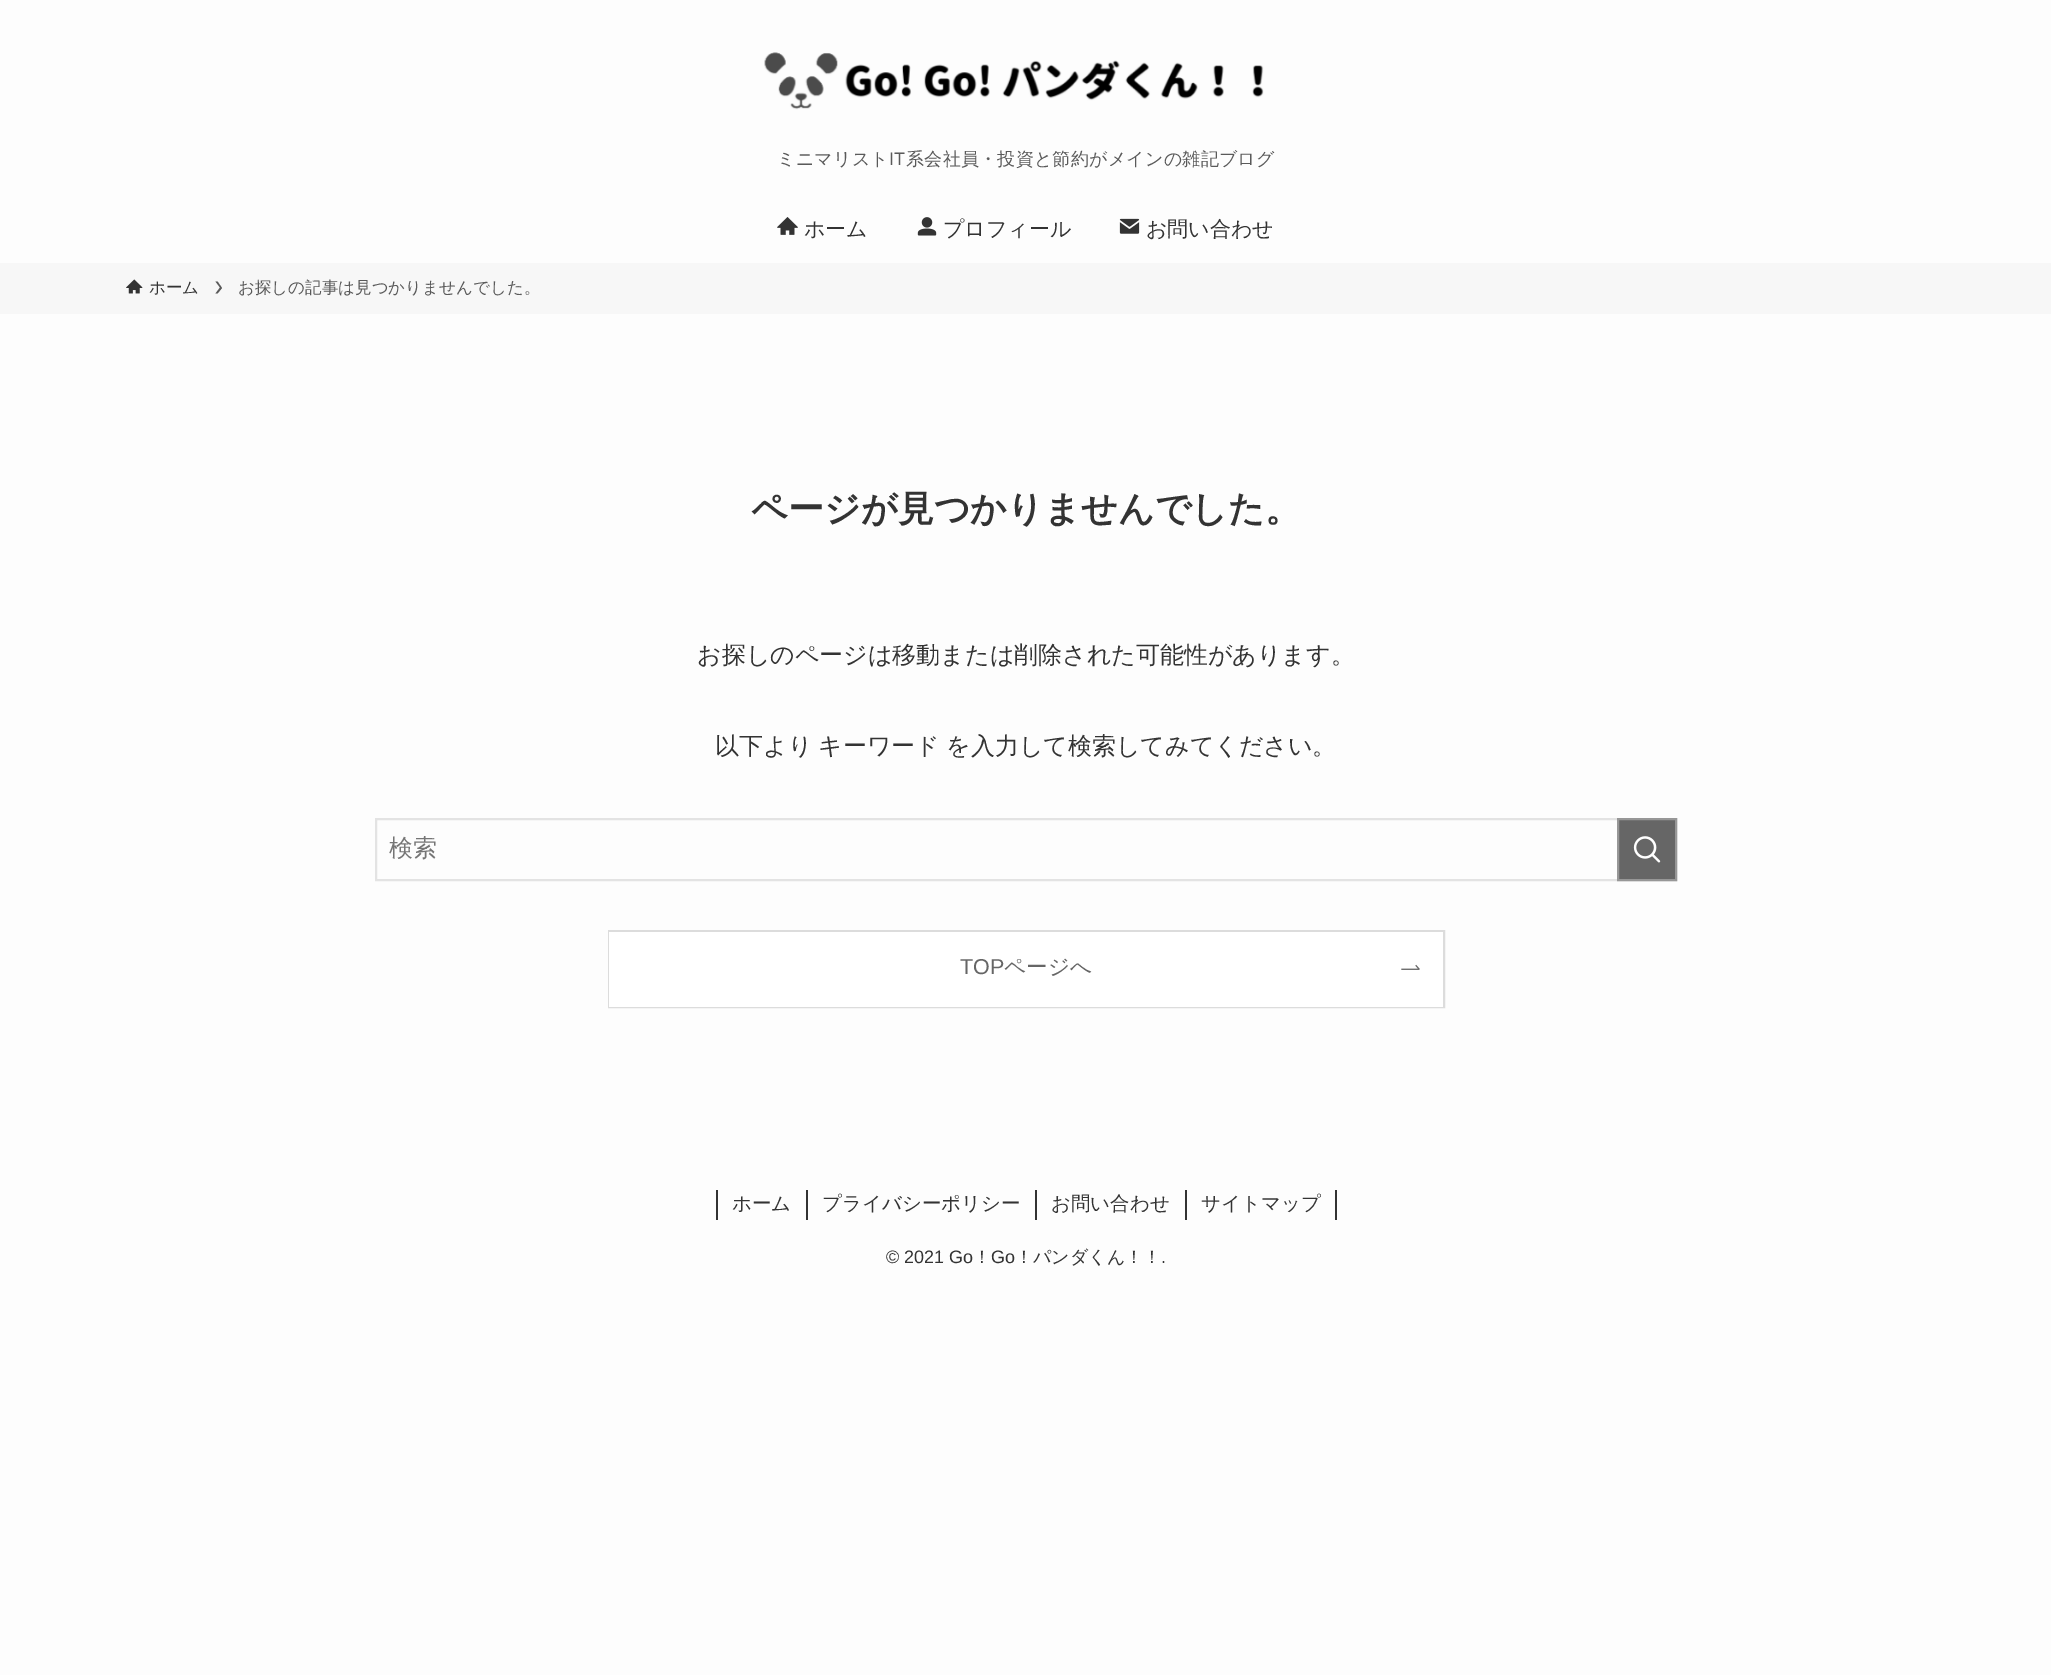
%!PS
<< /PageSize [2051 1675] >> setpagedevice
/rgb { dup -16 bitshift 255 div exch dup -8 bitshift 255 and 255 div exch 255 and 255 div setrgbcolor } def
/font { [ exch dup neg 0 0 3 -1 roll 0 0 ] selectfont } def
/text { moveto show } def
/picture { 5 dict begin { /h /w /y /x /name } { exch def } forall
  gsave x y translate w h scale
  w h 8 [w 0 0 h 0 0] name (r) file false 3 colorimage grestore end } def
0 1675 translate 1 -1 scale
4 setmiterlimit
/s1 { /WenQuanYiZenHei-Medium 21 font 16#333333 rgb } def
/s2 { /WenQuanYiZenHei-Medium 16.5 font 16#333333 rgb } def
/s3 { /WenQuanYiZenHei-Medium 16.5 font 16#5A5A5A rgb } def
/s4 { /WenQuanYiZenHei-Bold 36 font 16#333333 rgb } def
/s5 { /WenQuanYiZenHei-Medium 24 font 16#333333 rgb } def
/s6 { /WenQuanYiZenHei-Medium 24 font 16#757575 rgb } def
/s7 { /LiberationSans-Regular 21.5 font 16#666666 rgb } def
/s8 { /WenQuanYiZenHei-Medium 21.5 font 16#666666 rgb } def
/s9 { /WenQuanYiZenHei-Medium 19.5 font 16#333333 rgb } def
/s10 { /LiberationSans-Regular 18 font 16#333333 rgb } def
/s11 { /WenQuanYiZenHei-Medium 18 font 16#333333 rgb } def
16#FDFDFD rgb
0 0 2051 1675 rectfill
(pic1.raw) 764 52 500 58 picture
/WenQuanYiZenHei-Medium 18 font
16#5A5A5A rgb
777 165 moveto 0.25 0 (ミニマリスト) ashow
/LiberationSans-Regular 18 font
889 165 moveto 0.25 0 (IT) ashow
/WenQuanYiZenHei-Medium 18 font
906 165 moveto 0.25 0 (系会社員・投資と節約がメインの雑記ブログ) ashow
(pic2.raw) 777 217 21 18 picture
s1
(ホーム) 804 236 text
(pic3.raw) 917 217 20 19 picture
(プロフィール) 943 236 text
(pic4.raw) 1119 218 21 16 picture
(お問い合わせ) 1146 236 text
16#F7F7F7 rgb
0 263 2051 51 rectfill
(pic5.raw) 126 279 17 15 picture
s2
(ホーム) 149 293 text
16#5A5A5A rgb
217.5 281.5 moveto 215.5 281.5 lineto 220 287.5 lineto 215.5 293.5 lineto 217.5 293.5 lineto 222 288 lineto closepath fill
(お探しの記事は見つかりませんでした。) 238 293 text
s4
(ページが見つかりませんでした。) 751 521 text
s5
(お探しのページは移動または削除された可能性があります。) 697 663 text
715 754 moveto -1 0 32 (以下より キーワード を入力して検索してみてください。) widthshow
16#E3E3E3 rgb
2 setlinewidth
376 819 1300 61 rectstroke
s6
(検索) 389 856 text
16#666666 rgb
1618 819 moveto 1676 819 lineto 1676 880 lineto 1618 880 lineto closepath gsave fill grestore
16#979797 rgb
stroke
(pic6.raw) 1633 836 28 27 picture
16#DCDCDC rgb
609 931 835 76 rectstroke
16#FFFFFF rgb
609 932 834 75 rectfill
s7
(TOP) 960 974 text
s8
(ページへ) 1004 974 text
(pic7.raw) 1401 964 19 6 picture
16#333333 rgb
806 1190 2 30 rectfill
716 1190 2 30 rectfill
s9
(ホーム) 732 1210 text
1035 1190 2 30 rectfill
(プライバシーポリシー) 822 1210 text
1185 1190 2 30 rectfill
(お問い合わせ) 1051 1210 text
1335 1190 2 30 rectfill
(サイトマップ) 1201 1210 text
s10
(© 2021 Go) 886 1263 text
s11
(！) 973 1263 text
s10
(Go) 991 1263 text
s11
(！パンダくん！！) 1015 1263 text
s10
(.) 1161 1263 text
showpage
